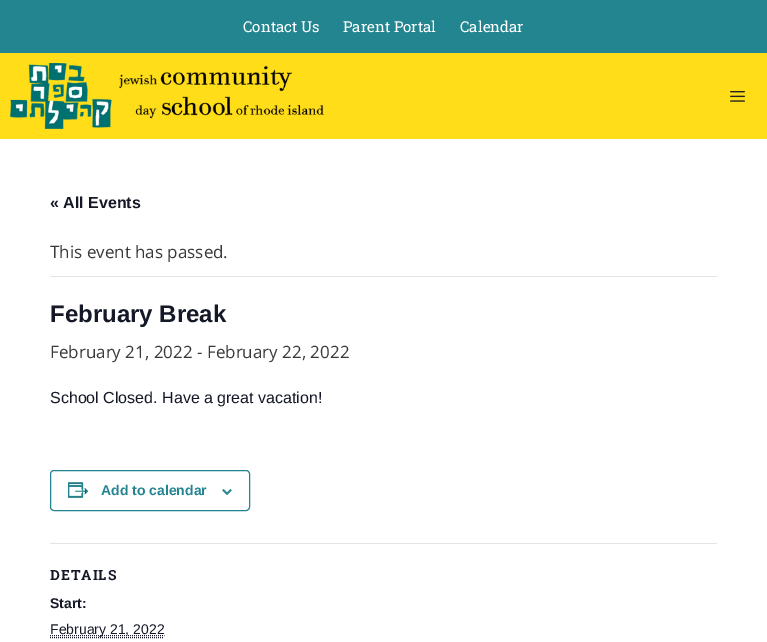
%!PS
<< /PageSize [767 642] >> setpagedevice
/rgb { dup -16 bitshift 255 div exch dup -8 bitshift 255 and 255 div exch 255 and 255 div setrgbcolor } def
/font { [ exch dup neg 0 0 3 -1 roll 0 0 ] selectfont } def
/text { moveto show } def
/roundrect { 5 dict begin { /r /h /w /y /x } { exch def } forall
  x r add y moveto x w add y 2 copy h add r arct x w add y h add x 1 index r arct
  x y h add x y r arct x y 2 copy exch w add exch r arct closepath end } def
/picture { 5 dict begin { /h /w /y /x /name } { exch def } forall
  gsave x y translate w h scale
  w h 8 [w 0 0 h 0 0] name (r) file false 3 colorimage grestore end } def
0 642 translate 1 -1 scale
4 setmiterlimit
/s1 { /RobotoSlab-Regular 15 font 16#FFFFFF rgb } def
/s2 { /LiberationSans-Bold 16 font 16#141827 rgb } def
/s3 { /OpenSans-Regular 17 font 16#3A3A3A rgb } def
/s4 { /LiberationSans-Bold 24 font 16#141827 rgb } def
/s5 { /LiberationSans-Regular 16 font 16#141827 rgb } def
/s6 { /LiberationSans-Bold 14 font 16#23858F rgb } def
/s7 { /LiberationSans-Bold 14 font 16#141827 rgb } def
/s8 { /LiberationSans-Regular 14 font 16#141827 rgb } def
16#23858F rgb
0 0 767 642 rectfill
s1
(Contact Us) 243 32 text
(Parent Portal) 343 32 text
(Calendar) 460 32 text
16#FFDD19 rgb
0 53 767 86 rectfill
(pic1.raw) 10 63 314 66 picture
(pic2.raw) 730 91 15 11 picture
16#FFFFFF rgb
0 139 767 503 rectfill
s2
(« All Events) 50 208 text
16#E4E4E4 rgb
50 276 667 1 rectfill
s3
(This event has passed.) 50 258 text
s4
(February Break) 50 322 text
s3
(February 21, 2022 - February 22, 2022) 50 358 text
s5
(School Closed. Have a great vacation!) 50 403 text
16#23858F rgb
50.5 470.5 199 40 3.5 roundrect stroke
(pic3.raw) 68 482 21 16 picture
s6
(Add to calendar) 101 495 text
(pic4.raw) 222 489 10 6 picture
16#E4E4E4 rgb
50 543 667 1 rectfill
/RobotoSlab-Bold 14 font
16#141827 rgb
50 580 moveto 1 0 (DETAILS) ashow
s7
(Start:) 50 608 text
[1 1] 0 setdash
50 635.5 moveto 164.5 635.5 lineto stroke
s8
(February 21, 2022) 50 634 text
50 637.5 moveto 164 637.5 lineto stroke
showpage
